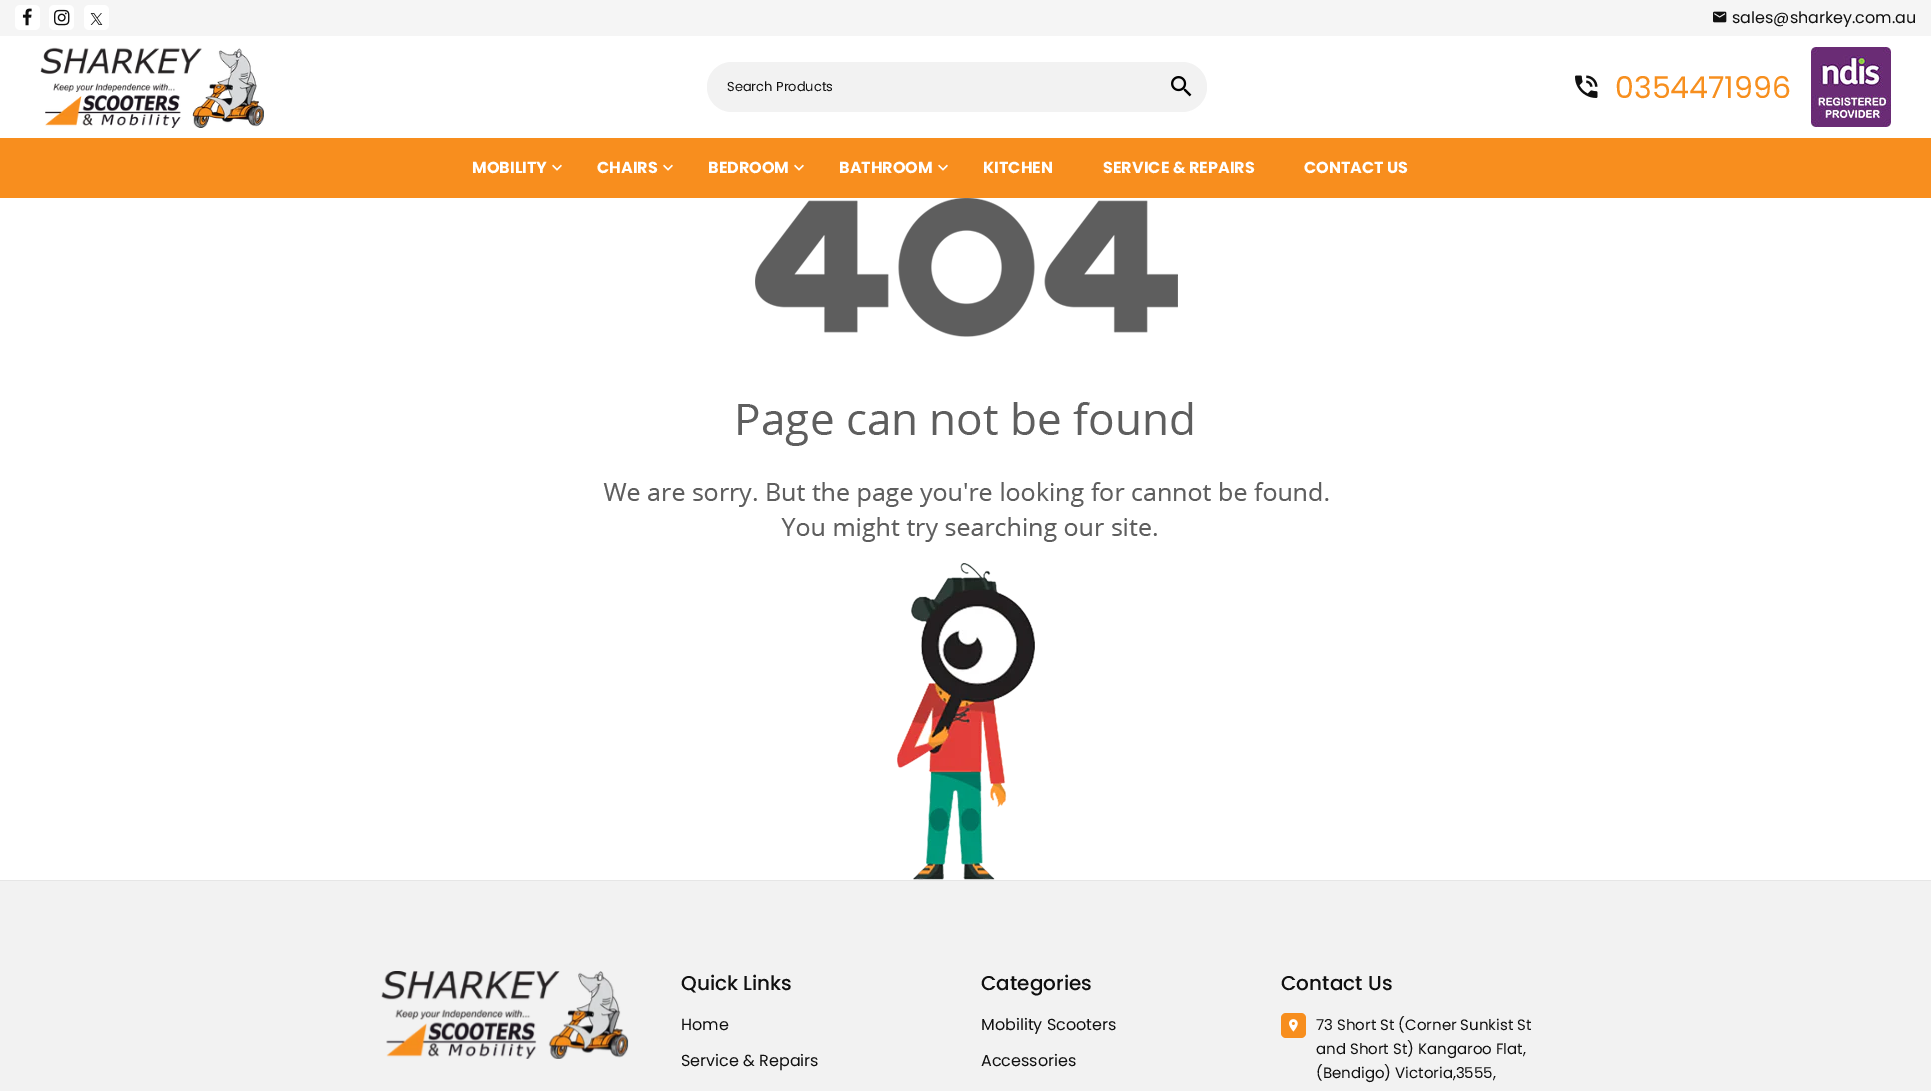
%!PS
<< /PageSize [1931 1091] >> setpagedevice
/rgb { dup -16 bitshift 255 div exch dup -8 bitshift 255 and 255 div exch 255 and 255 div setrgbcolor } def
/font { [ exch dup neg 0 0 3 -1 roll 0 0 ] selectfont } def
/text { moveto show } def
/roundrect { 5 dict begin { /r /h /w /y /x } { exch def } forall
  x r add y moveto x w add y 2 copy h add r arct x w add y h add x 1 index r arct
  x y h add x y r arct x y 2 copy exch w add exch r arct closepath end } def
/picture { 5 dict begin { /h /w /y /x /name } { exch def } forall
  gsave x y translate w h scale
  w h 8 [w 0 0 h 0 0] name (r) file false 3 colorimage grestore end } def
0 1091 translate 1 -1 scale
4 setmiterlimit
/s1 { /Poppins-Regular 16 font 16#101010 rgb } def
/s2 { /Poppins-Regular 13 font 16#101010 rgb } def
/s3 { /Poppins-Regular 30 font 16#F78F1E rgb } def
/s4 { /Poppins-Bold 16 font 16#FFFFFF rgb } def
/s5 { /Poppins-Medium 20 font 16#101010 rgb } def
/s6 { /Poppins-Regular 15 font 16#101010 rgb } def
16#FFFFFF rgb
0 0 1931 1091 rectfill
16#F5F5F5 rgb
0 0 1931 36 rectfill
16#FFFFFF rgb
15 5 25 25 5 roundrect fill
(pic1.raw) 22 8 10 18 picture
49 5 25 25 5 roundrect fill
(pic2.raw) 54 9 16 17 picture
84 5 25 25 5 roundrect fill
(pic3.raw) 90 13 13 12 picture
(pic4.raw) 1713 11 14 12 picture
s1
(sales@sharkey.com.au) 1732 23 text
(pic5.raw) 40 47 224 81 picture
16#F2F2F2 rgb
707 62 500 50 25 roundrect fill
s2
(Search Products) 727 91 text
(pic6.raw) 1171 76 21 21 picture
(pic7.raw) 1575 75 23 23 picture
s3
(0354471996) 1615 98 text
(pic8.raw) 1811 47 80 80 picture
16#F88E1E rgb
0 138 1931 60 rectfill
s4
(MOBILITY) 472 173 text
(pic9.raw) 552 164 10 7 picture
(CHAIRS) 597 173 text
(pic9.raw) 663 164 10 7 picture
(BEDROOM) 708 173 text
(pic9.raw) 794 164 10 7 picture
(BATHROOM) 839 173 text
(pic9.raw) 938 164 10 7 picture
(KITCHEN) 983 173 text
(SERVICE & REPAIRS) 1103 173 text
(CONTACT US) 1304 173 text
(pic10.raw) 603 198 726 682 picture
16#F2F2F2 rgb
0 881 1931 210 rectfill
16#E6E6E6 rgb
0 880 1931 1 rectfill
(pic11.raw) 381 971 248 88 picture
s5
(Quick Links) 681 990 text
s1
(Home) 681 1030 text
(Service & Repairs) 681 1066 text
s5
(Categories) 981 990 text
s1
(Mobility Scooters) 981 1030 text
(Accessories) 981 1066 text
s5
(Contact Us) 1281 990 text
16#F78E1E rgb
1281 1013 25 25 5 roundrect fill
(pic12.raw) 1289 1019 9 13 picture
s6
(73 Short St \(Corner Sunkist St) 1316 1030 text
(and Short St\) Kangaroo Flat,) 1316 1054 text
(\(Bendigo\) Victoria,3555,) 1316 1078 text
showpage
